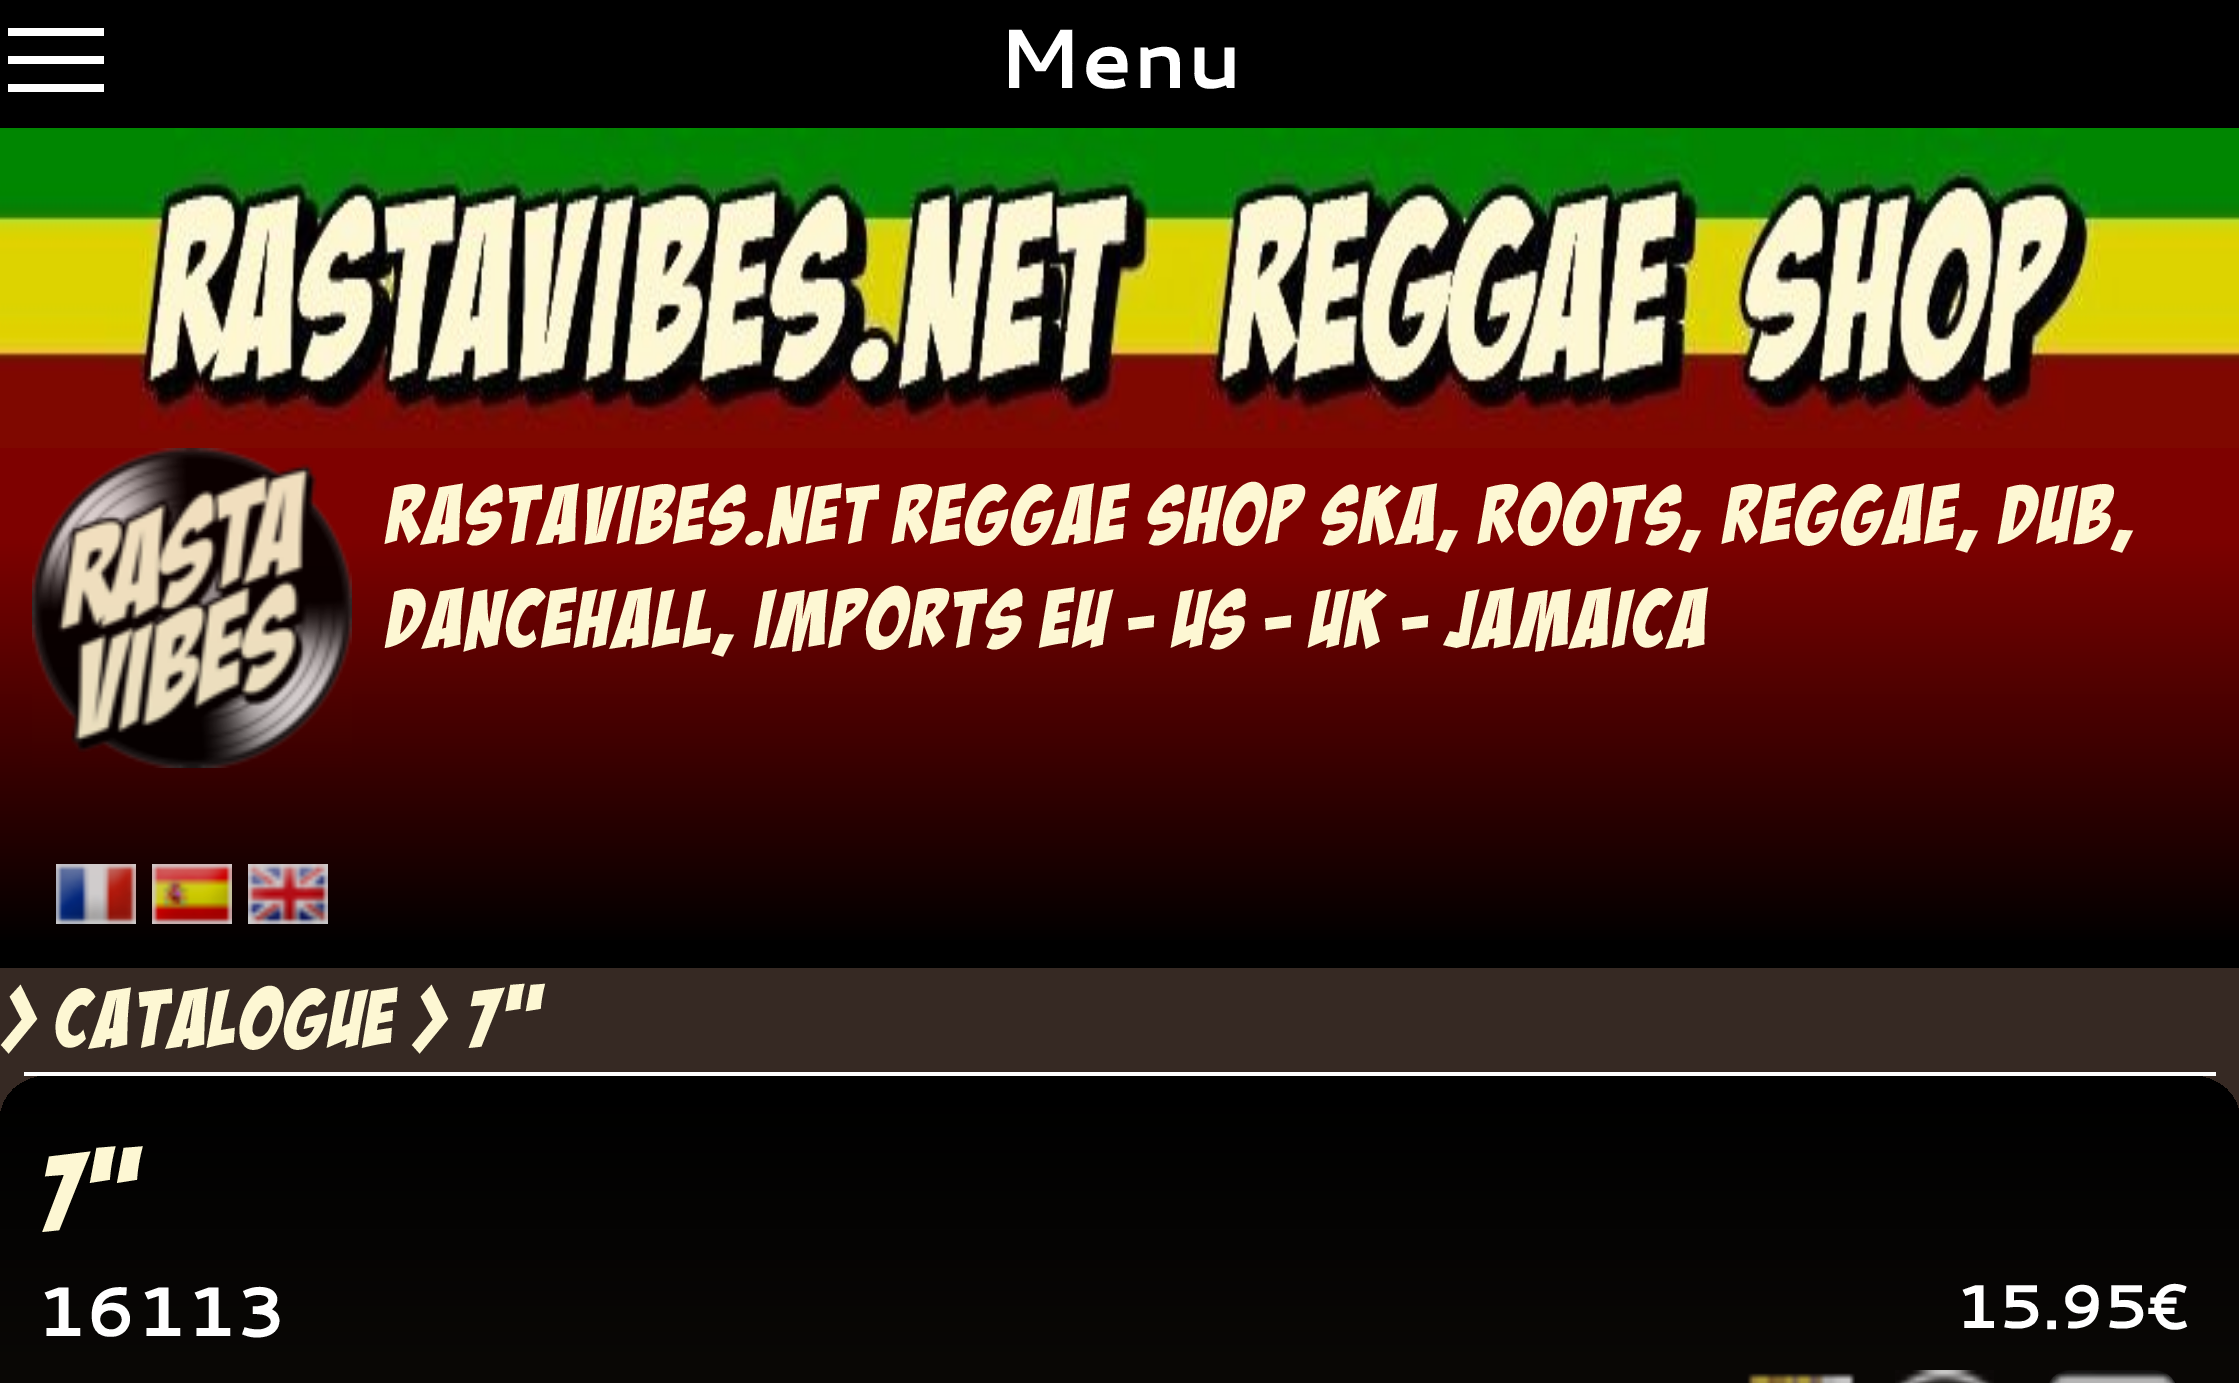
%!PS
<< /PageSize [2239 1383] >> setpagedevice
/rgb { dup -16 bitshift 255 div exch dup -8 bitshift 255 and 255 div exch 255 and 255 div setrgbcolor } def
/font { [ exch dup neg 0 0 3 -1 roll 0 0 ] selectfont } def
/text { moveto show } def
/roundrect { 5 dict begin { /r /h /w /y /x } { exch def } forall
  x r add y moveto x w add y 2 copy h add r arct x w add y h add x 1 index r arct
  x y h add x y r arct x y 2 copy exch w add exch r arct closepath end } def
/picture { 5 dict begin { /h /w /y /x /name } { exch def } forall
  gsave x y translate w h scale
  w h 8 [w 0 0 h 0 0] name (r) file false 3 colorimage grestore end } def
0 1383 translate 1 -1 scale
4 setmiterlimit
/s1 { /Cantarell-Bold 84 font 16#FFFFFF rgb } def
/s2 { /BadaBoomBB-Regular 84 font 16#FDF7D3 rgb } def
/s3 { /BadaBoomBB-Regular 112 font 16#FDF7D3 rgb } def
/s4 { /Cantarell-Bold 70 font 16#FFFFFF rgb } def
/s5 { /Cantarell-Bold 61.5 font 16#FFFFFF rgb } def
16#000000 rgb
0 0 2239 1383 rectfill
16#FFFFFF rgb
8 56 96 8 rectfill
8 28 96 8 rectfill
8 84 96 8 rectfill
s1
(Menu) 997 88 text
gsave 0 448 moveto 2239 448 lineto 2239 940 lineto 0 940 lineto closepath clip newpath
<< /ShadingType 2 /ColorSpace /DeviceRGB /Coords [1120 128 1120 948] /Extend [true true] /Function << /FunctionType 3 /Domain [0 1] /Functions [<< /FunctionType 2 /Domain [0 1] /C0 [0.494 0.004 0] /C1 [0.494 0.004 0] /N 1 >> << /FunctionType 2 /Domain [0 1] /C0 [0.494 0.004 0] /C1 [0 0 0] /N 1 >>] /Bounds [0.5] /Encode [0 1 0 1] >> >> shfill grestore
(pic1.raw) 32 448 320 320 picture
(pic2.raw) 56 864 80 60 picture
(pic3.raw) 152 864 80 60 picture
(pic4.raw) 248 864 80 60 picture
(pic5.raw) 0 128 2239 320 picture
s2
(RASTAViBES.NET reggae shop ska, roots, reggae, dub,) 384 544 text
(dancehall, imports EU - US - UK - Jamaica) 384 648 text
16#362923 rgb
0 968 2239 152 rectfill
s2
(> CATALOGUE > 7") 0 1048 text
gsave 48 1076 moveto 2192 1076 lineto 2219 1076 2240 1096 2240 1120 curveto 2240 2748 lineto 0 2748 lineto 0 1120 lineto 0 1096 21 1076 48 1076 curveto closepath clip newpath
<< /ShadingType 2 /ColorSpace /DeviceRGB /Coords [1120 1076 1120 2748] /Extend [true true] /Function << /FunctionType 2 /Domain [0 1] /C0 [0 0 0] /C1 [0.212 0.161 0.137] /N 1 >> >> shfill grestore
16#FFFFFF rgb
24 1072 2192 4 rectfill
s3
(7") 36 1232 text
s4
(16113) 36 1336 text
s5
(15.95€) 1955 1328 text
(pic6.raw) 1747 1373 108 10 picture
(pic7.raw) 1895 1370 99 13 picture
16#020101 rgb
2048 1372 132 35 24 roundrect fill
(pic8.raw) 2049 1370 126 13 picture
showpage
